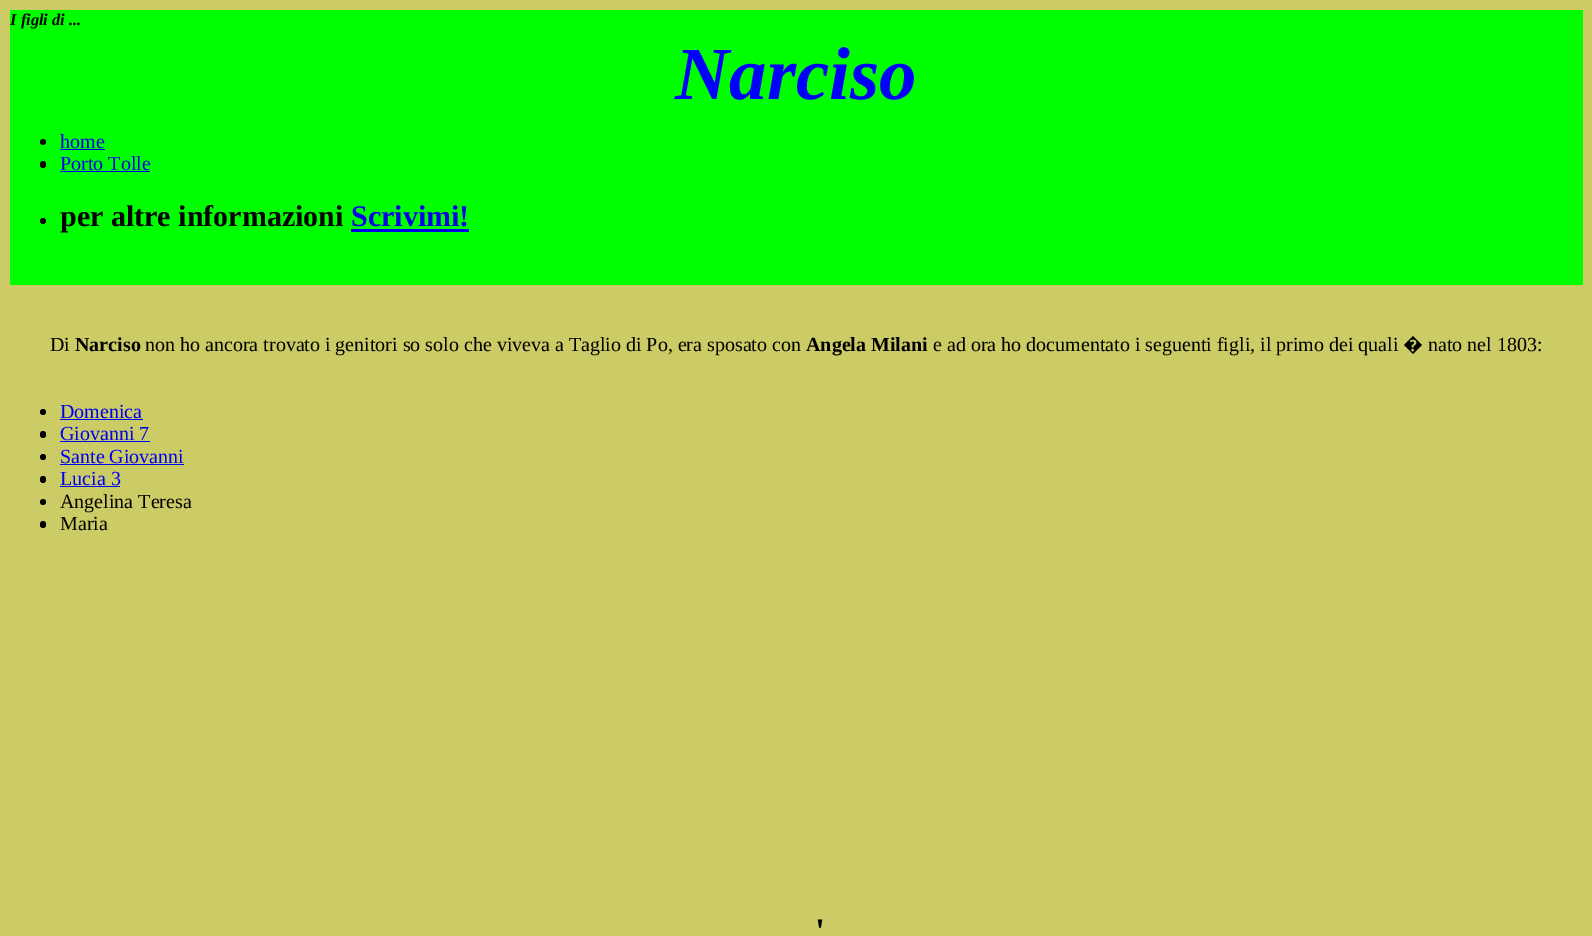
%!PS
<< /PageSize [1592 936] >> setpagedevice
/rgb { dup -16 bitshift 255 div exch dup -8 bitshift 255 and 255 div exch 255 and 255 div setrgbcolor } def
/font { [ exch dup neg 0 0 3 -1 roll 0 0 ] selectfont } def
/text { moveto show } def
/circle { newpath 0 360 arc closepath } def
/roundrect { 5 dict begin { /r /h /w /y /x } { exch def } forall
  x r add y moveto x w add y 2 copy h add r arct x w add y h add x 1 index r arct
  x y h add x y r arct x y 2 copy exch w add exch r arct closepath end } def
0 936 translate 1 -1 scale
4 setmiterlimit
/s1 { /LiberationSerif-BoldItalic 16.5 font 16#000000 rgb } def
/s2 { /LiberationSerif-BoldItalic 75 font 16#0000FF rgb } def
/s3 { /LiberationSerif-Regular 20 font 16#0000EE rgb } def
/s4 { /LiberationSerif-Bold 30 font 16#000000 rgb } def
/s5 { /LiberationSerif-Bold 30 font 16#0000EE rgb } def
/s6 { /LiberationSerif-Regular 20 font 16#000000 rgb } def
/s7 { /LiberationSerif-Bold 20 font 16#000000 rgb } def
/s8 { /NotoSans-Regular 20 font 16#000000 rgb } def
/s9 { /LiberationSerif-Bold 36 font 16#000000 rgb } def
16#CCCC66 rgb
0 0 1592 936 rectfill
16#00FF00 rgb
10 10 1573 275 rectfill
s1
(I figli di ...) 10 25 text
s2
(Narciso) 675 99 text
16#000000 rgb
43 142 3 circle fill
s3
(home) 60 148 text
60 149 45 1 rectfill
16#000000 rgb
40 161 6 7 3 roundrect fill
s3
(Porto Tolle) 60 170 text
60 171 90 1 rectfill
16#000000 rgb
43 221 3 circle fill
s4
(per altre informazioni) 60 226 text
s5
(Scrivimi!) 351 226 text
351 229 118 3 rectfill
s6
(Di) 50 351 text
s7
(Narciso) 75 351 text
s6
(non ho ancora trovato i genitori so solo che viveva a Taglio di Po, era sposato con) 145 351 text
s7
(Angela Milani) 806 351 text
s6
(e ad ora ho documentato i seguenti figli, il primo dei quali) 933 351 text
s8
(�) 1403 351 text
s6
(nato nel 1803:) 1428 351 text
43 412 3 circle fill
s3
(Domenica) 60 418 text
60 419 83 1 rectfill
16#000000 rgb
40 431 6 7 3 roundrect fill
s3
(Giovanni 7) 60 440 text
60 441 90 1 rectfill
16#000000 rgb
43 457 3 circle fill
s3
(Sante Giovanni) 60 463 text
60 464 124 1 rectfill
16#000000 rgb
40 476 6 7 3 roundrect fill
s3
(Lucia 3) 60 485 text
60 486 60 1 rectfill
16#000000 rgb
43 502 3 circle fill
(Angelina Teresa) 60 508 text
40 521 6 7 3 roundrect fill
(Maria) 60 530 text
s9
(') 815 943 text
showpage
